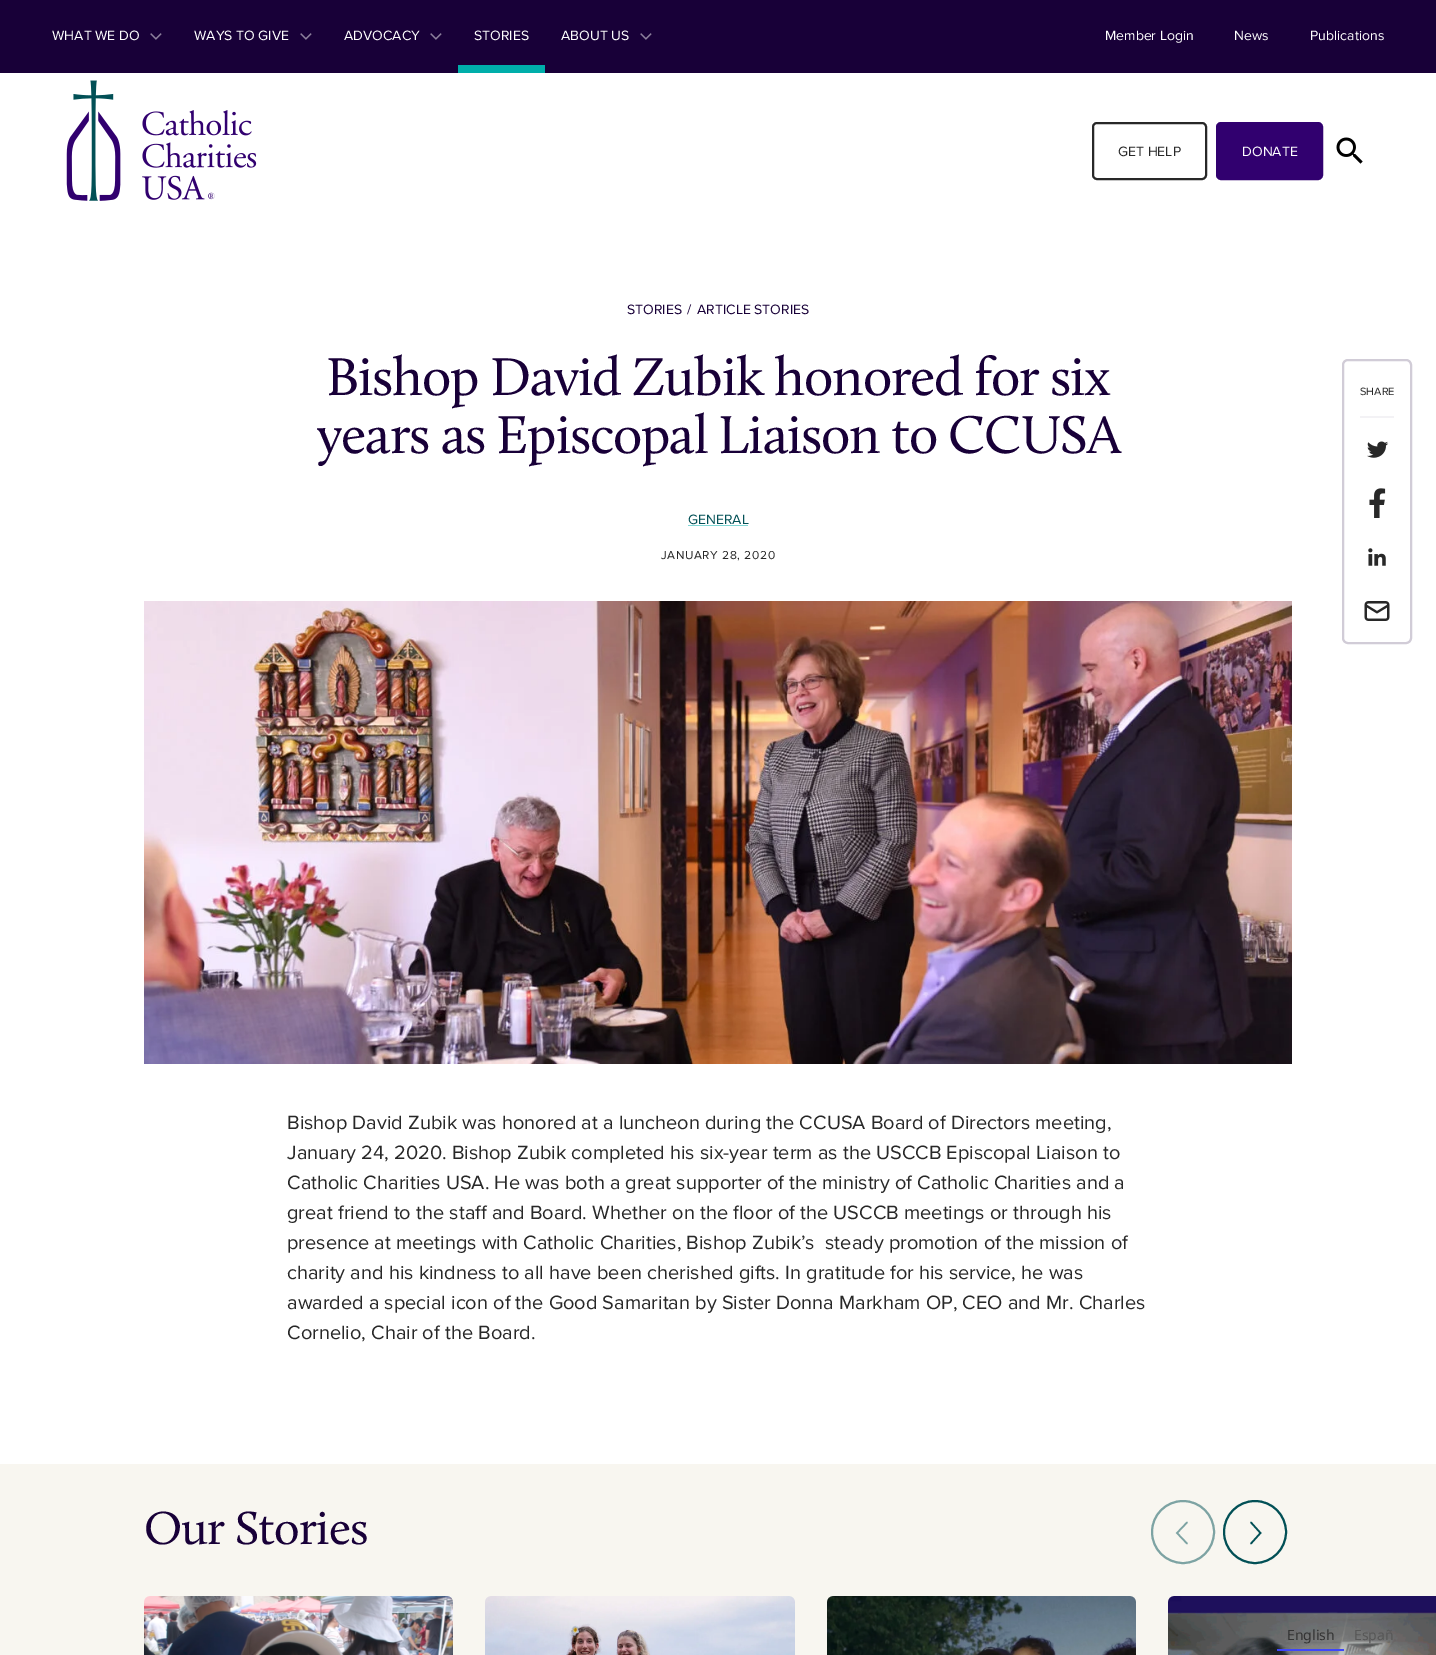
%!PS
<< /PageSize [1436 1655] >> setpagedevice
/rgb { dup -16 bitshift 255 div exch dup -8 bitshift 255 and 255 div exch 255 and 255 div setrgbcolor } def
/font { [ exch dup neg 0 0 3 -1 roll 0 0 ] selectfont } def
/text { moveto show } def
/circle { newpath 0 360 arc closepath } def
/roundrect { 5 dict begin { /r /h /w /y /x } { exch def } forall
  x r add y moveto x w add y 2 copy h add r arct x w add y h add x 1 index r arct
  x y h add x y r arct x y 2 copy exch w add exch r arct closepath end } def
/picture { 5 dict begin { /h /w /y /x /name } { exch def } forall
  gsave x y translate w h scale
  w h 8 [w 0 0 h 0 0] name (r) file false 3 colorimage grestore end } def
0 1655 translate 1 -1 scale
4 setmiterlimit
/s1 { /ProximaNova-Regular 14 font 16#FFFFFF rgb } def
/s2 { /ProximaNova-Regular 14 font 16#282828 rgb } def
/s3 { /ProximaNova-Regular 11 font 16#282828 rgb } def
/s4 { /ProximaNova-Regular 14 font 16#180038 rgb } def
/s5 { /ProximaNova-Regular 14 font 16#025056 rgb } def
/s6 { /ProximaNova-Regular 20 font 16#282828 rgb } def
/s7 { /NotoSans-Regular 14 font 16#333333 rgb } def
/s8 { /NotoSans-Regular 14 font 16#575757 rgb } def
16#FFFFFF rgb
0 0 1436 1655 rectfill
16#180038 rgb
0 0 1436 73 rectfill
s1
(WHAT WE DO) 52 40 text
(pic1.raw) 150 33 12 7 picture
(WAYS TO GIVE) 194 40 text
(pic1.raw) 300 33 12 7 picture
(ADVOCACY) 344 40 text
(pic1.raw) 430 33 12 7 picture
(STORIES) 474 40 text
16#00AEAA rgb
458 65 87 8 rectfill
s1
(ABOUT US) 561 40 text
(pic1.raw) 640 33 12 7 picture
(Member Login) 1105 40 text
(News) 1234 40 text
(Publications) 1310 40 text
(pic2.raw) 66 80 191 121 picture
16#282828 rgb
2 setlinewidth
1093 123 113 56 4 roundrect stroke
(GET HELP) 1118 156 text
16#31006F rgb
1217 123 105 56 4 roundrect gsave fill grestore
stroke
s1
(DONATE) 1242 156 text
(pic3.raw) 1336 137 27 27 picture
16#D1CCD7 rgb
1343 360 68 283 5 roundrect stroke
16#F3F2F5 rgb
1360 416 34 2 rectfill
s3
(SHARE) 1360 395 text
(pic4.raw) 1367 441 22 17 picture
(pic5.raw) 1369 488 17 30 picture
(pic6.raw) 1368 548 18 18 picture
(pic7.raw) 1364 601 26 20 picture
s4
(STORIES) 627 314 text
(/) 687 314 text
(ARTICLE STORIES) 697 314 text
/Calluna-Regular 55 font
326 395 moveto -1.1 0 (Bishop David Zubik honored for six) ashow
317 453 moveto -1.1 0 (years as Episcopal Liaison to CCUSA) ashow
s5
(GENERAL) 688 524 text
16#80D7D5 rgb
688 525 60 1 rectfill
/ProximaNova-Regular 12 font
16#282828 rgb
661 559 moveto 0.6 0 (JANUARY 28, 2020) ashow
(pic8.raw) 144 601 1148 463 picture
s6
(Bishop David Zubik was honored at a luncheon during the CCUSA Board of Directors meeting,) 287 1129 text
(January 24, 2020. Bishop Zubik completed his six-year term as the USCCB Episcopal Liaison to) 287 1159 text
(Catholic Charities USA. He was both a great supporter of the ministry of Catholic Charities and a) 287 1189 text
(great friend to the staff and Board. Whether on the floor of the USCCB meetings or through his) 287 1219 text
(presence at meetings with Catholic Charities, Bishop Zubik’s  steady promotion of the mission of) 287 1249 text
(charity and his kindness to all have been cherished gifts. In gratitude for his service, he was) 287 1279 text
(awarded a special icon of the Good Samaritan by Sister Donna Markham OP, CEO and Mr. Charles) 287 1309 text
(Cornelio, Chair of the Board.) 287 1339 text
16#F8F6F0 rgb
0 1464 1436 191 rectfill
/Calluna-Regular 48 font
16#180038 rgb
144 1544 moveto -0.75 0 (Our Stories) ashow
16#7DA3A3 rgb
1183 1532 31 circle stroke
1.6 setlinewidth
1 setlinecap
1187 1522.5 moveto 1177 1533 lineto 1187 1543.5 lineto stroke
16#025056 rgb
2 setlinewidth
0 setlinecap
1255 1532 31 circle stroke
1.6 setlinewidth
1 setlinecap
1251 1522.5 moveto 1260.5 1533 lineto 1251 1543.5 lineto stroke
(pic9.raw) 144 1596 309 59 picture
(pic10.raw) 485 1596 310 59 picture
(pic11.raw) 827 1596 309 59 picture
(pic12.raw) 1168 1596 268 59 picture
s7
(English) 1287 1640 text
16#3D46FB rgb
1277 1649 67 2 rectfill
s8
(Españ) 1354 1640 text
showpage
